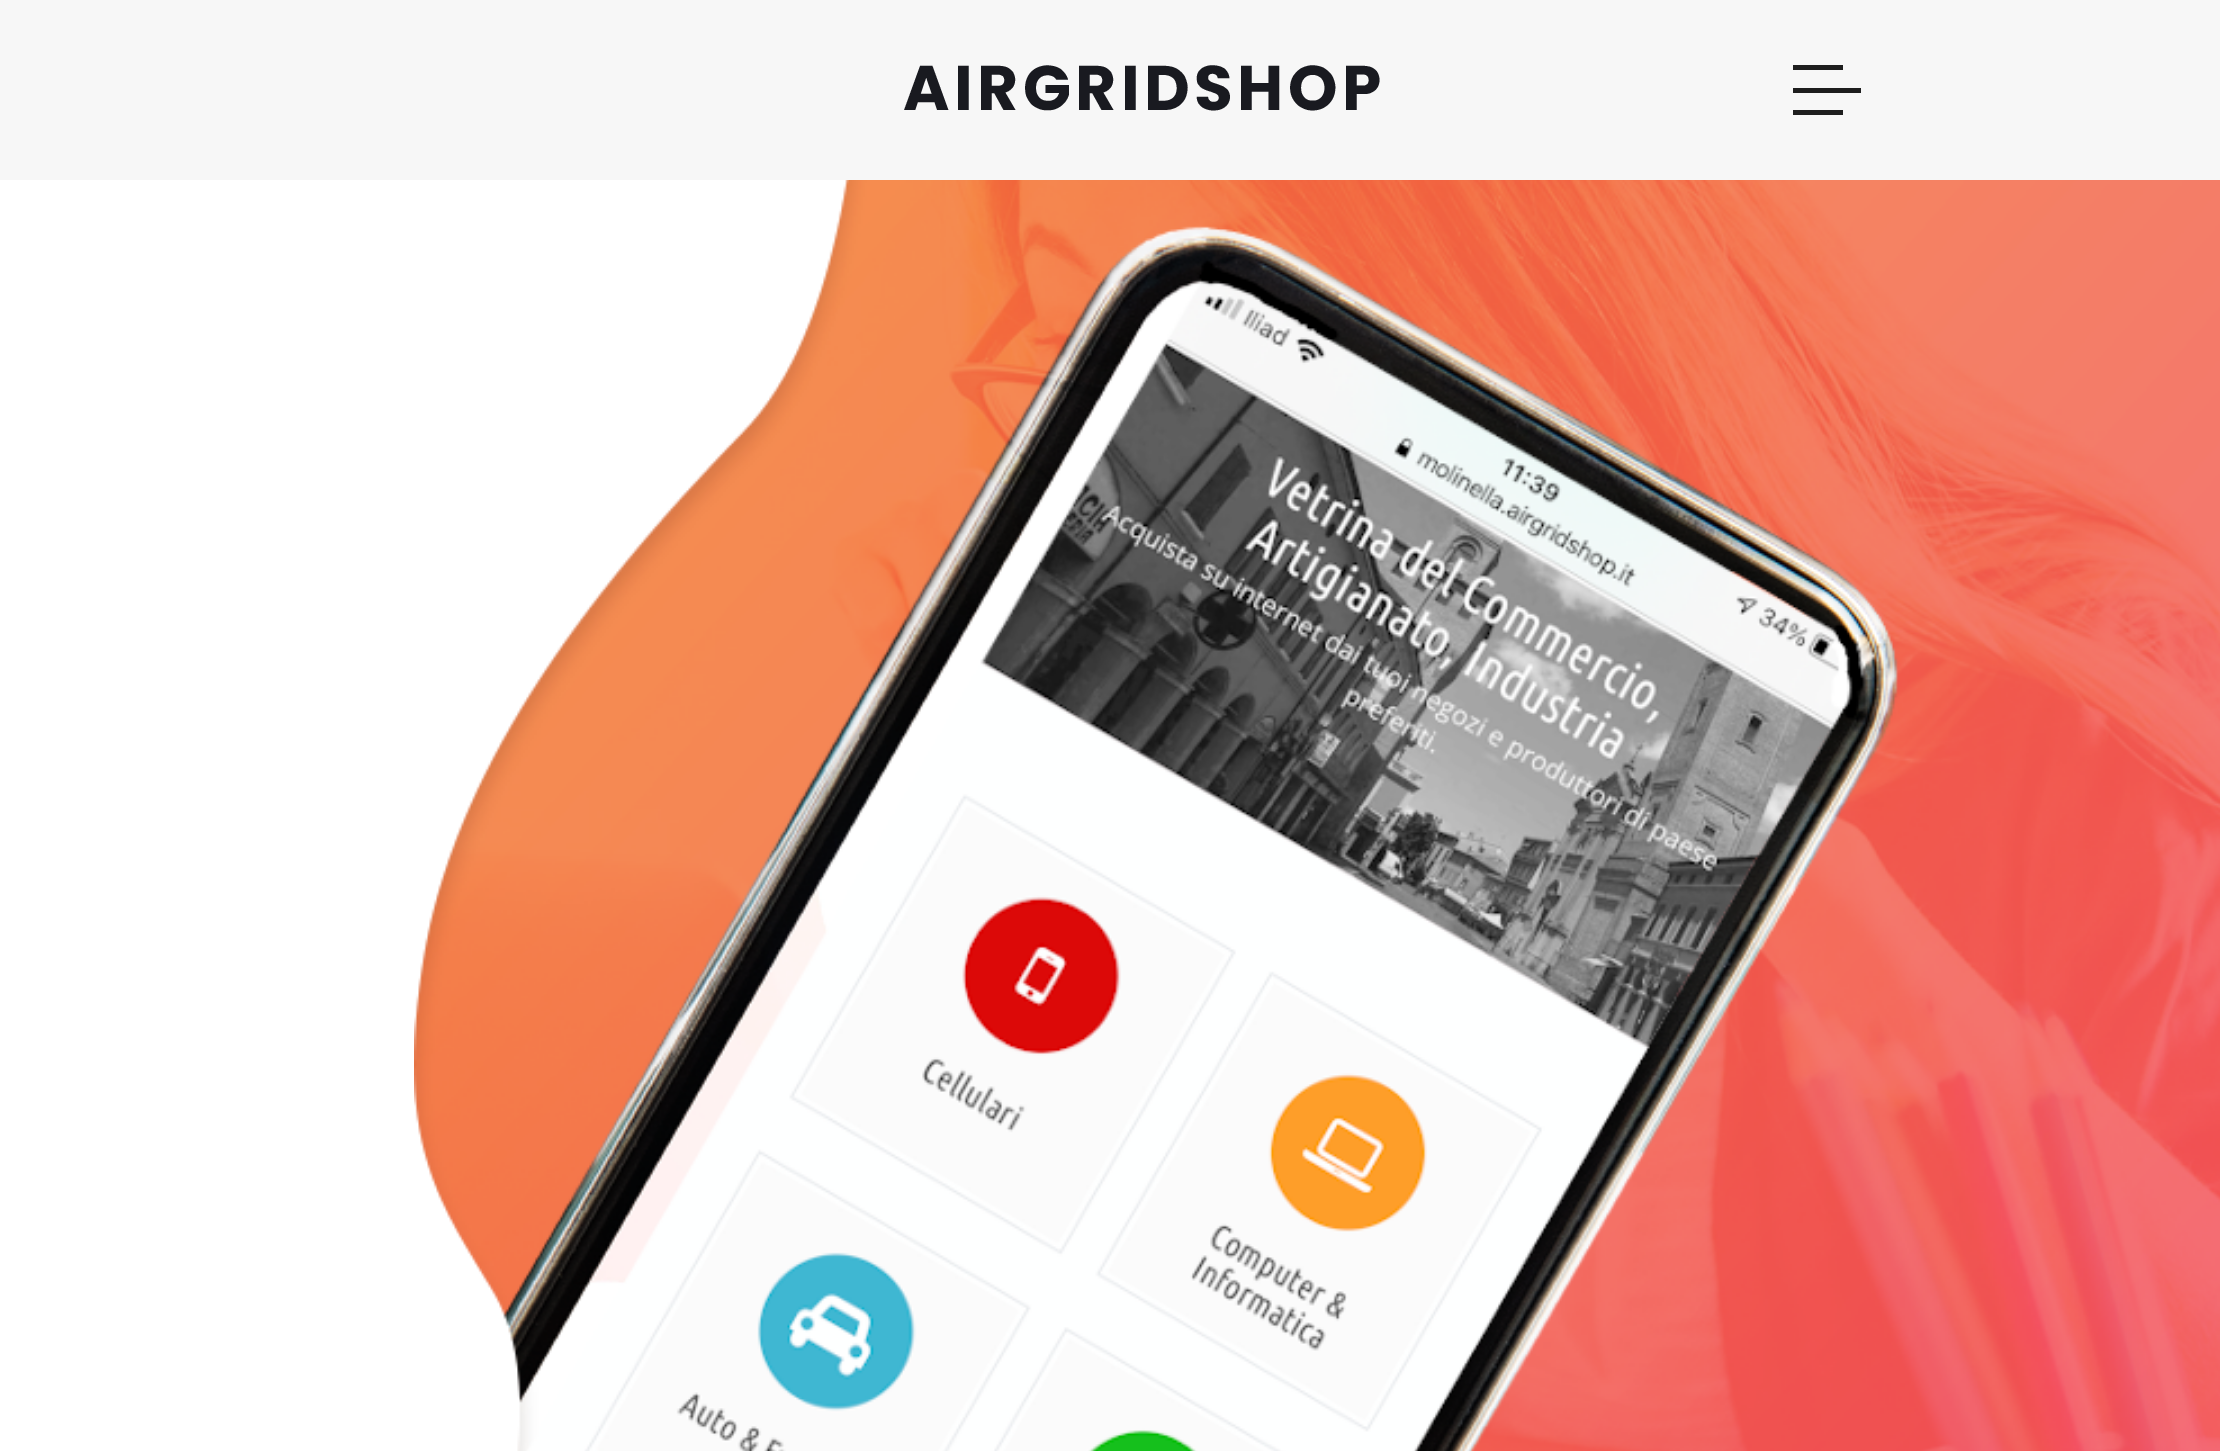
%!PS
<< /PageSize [2220 1451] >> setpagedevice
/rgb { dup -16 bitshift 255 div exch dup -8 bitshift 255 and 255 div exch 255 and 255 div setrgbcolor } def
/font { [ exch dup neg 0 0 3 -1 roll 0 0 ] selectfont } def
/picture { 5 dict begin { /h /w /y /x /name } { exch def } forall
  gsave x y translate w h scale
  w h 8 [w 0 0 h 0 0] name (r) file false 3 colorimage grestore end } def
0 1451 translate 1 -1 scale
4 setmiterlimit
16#FFFFFF rgb
0 0 2220 1451 rectfill
16#F7F7F7 rgb
0 0 2220 180 rectfill
/Poppins-Bold 63 font
16#191A20 rgb
903 110 moveto 4.5 0 (AIRGRIDSHOP) ashow
16#1E1E1E rgb
1793 88 68 5 rectfill
1793 65 50 5 rectfill
1793 110 50 5 rectfill
(pic1.raw) 414 180 1806 1271 picture
showpage
